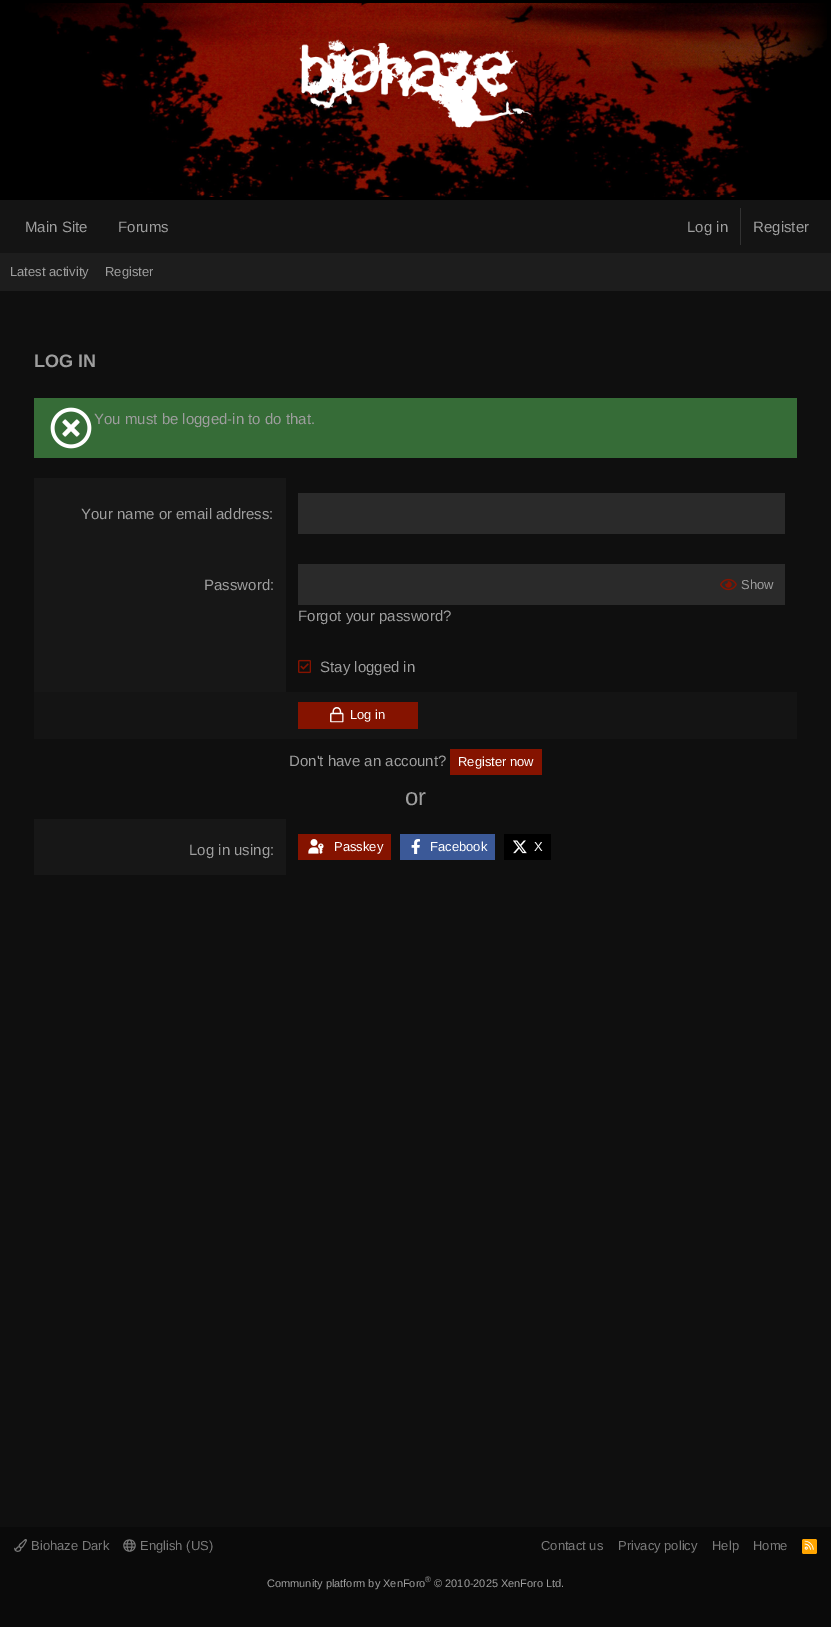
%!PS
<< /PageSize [831 1627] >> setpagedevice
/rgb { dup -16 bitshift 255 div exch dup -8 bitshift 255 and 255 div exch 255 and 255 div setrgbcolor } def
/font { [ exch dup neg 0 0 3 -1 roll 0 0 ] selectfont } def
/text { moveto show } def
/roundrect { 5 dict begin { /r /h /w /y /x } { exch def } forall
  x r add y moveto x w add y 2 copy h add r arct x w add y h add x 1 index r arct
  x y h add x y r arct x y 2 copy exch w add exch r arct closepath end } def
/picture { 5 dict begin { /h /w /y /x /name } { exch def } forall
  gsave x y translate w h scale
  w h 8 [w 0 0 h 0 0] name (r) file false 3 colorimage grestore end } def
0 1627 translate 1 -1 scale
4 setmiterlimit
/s1 { /LiberationSans-Regular 15 font 16#9E9E9E rgb } def
/s2 { /LiberationSans-Regular 13 font 16#9E9E9E rgb } def
/s3 { /LiberationSans-Bold 18 font 16#9E9E9E rgb } def
/s4 { /LiberationSans-Regular 13 font 16#FFFFFF rgb } def
/s5 { /LiberationSans-Regular 24 font 16#9E9E9E rgb } def
/s6 { /LiberationSans-Regular 13 font 16#7A7A7A rgb } def
/s7 { /LiberationSans-Regular 11 font 16#9E9E9E rgb } def
/s8 { /LiberationSans-Regular 8 font 16#9E9E9E rgb } def
16#0F0F0F rgb
0 0 831 1627 rectfill
16#000000 rgb
0 0 831 200 rectfill
(pic1.raw) 25 3 802 194 picture
(pic2.raw) 299 39 233 89 picture
16#141414 rgb
0 200 831 53 rectfill
s1
(Main Site) 25 232 text
(Forums) 118 232 text
(Log in) 687 232 text
16#323232 rgb
740 208 1 37 rectfill
s1
(Register) 753 232 text
16#1D1D1D rgb
0 253 831 38 rectfill
s2
(Latest activity) 10 276 text
(Register) 105 276 text
s3
(LOG IN) 34 367 text
16#366C37 rgb
34 398 763 60 rectfill
(pic3.raw) 50 407 42 42 picture
s1
(You must be logged-in to do that.) 94 424 text
16#171717 rgb
34 478 252 214 rectfill
s1
(Your name or email address:) 81 519 text
16#2A2A2A rgb
298 493 487 41 rectfill
s1
(Password:) 204 590 text
16#2A2A2A rgb
298 564 487 41 rectfill
(pic4.raw) 720 578 17 13 picture
s2
(Show) 741 589 text
s1
(Forgot your password?) 298 621 text
(pic5.raw) 298 659 13 15 picture
(Stay logged in) 320 672 text
16#141414 rgb
34 692 763 47 rectfill
16#851300 rgb
298 702 120 27 rectfill
(pic6.raw) 330 707 14 16 picture
s4
(Log in) 350 719 text
s1
(Don't have an account?) 289 766 text
16#851300 rgb
450 749 92 26 rectfill
s4
(Register now) 458 766 text
s5
(or) 405 805 text
16#171717 rgb
34 819 252 56 rectfill
s1
(Log in using:) 189 855 text
16#851300 rgb
298 834 93 26 rectfill
(pic7.raw) 308 839 16 15 picture
s4
(Passkey) 334 851 text
16#3B5998 rgb
400 834 95 26 rectfill
(pic8.raw) 411 839 9 15 picture
s4
(Facebook) 430 851 text
16#000000 rgb
504 834 47 26 rectfill
(pic9.raw) 513 840 14 14 picture
s4
(X) 534 851 text
16#0A0A0A rgb
0 1527 831 100 rectfill
(pic10.raw) 14 1539 13 13 picture
s6
(Biohaze Dark) 31 1550 text
(pic11.raw) 123 1539 13 13 picture
(English \(US\)) 140 1550 text
(Contact us) 541 1550 text
(Privacy policy) 618 1550 text
(Help) 712 1550 text
(Home) 753 1550 text
16#FFA500 rgb
802 1539 15 15 2 roundrect fill
(pic12.raw) 804 1540 10 10 picture
s7
(Community platform by XenForo) 267 1587 text
s8
(®) 425 1582 text
s7
(© 2010-2025 XenForo Ltd.) 434 1587 text
showpage
